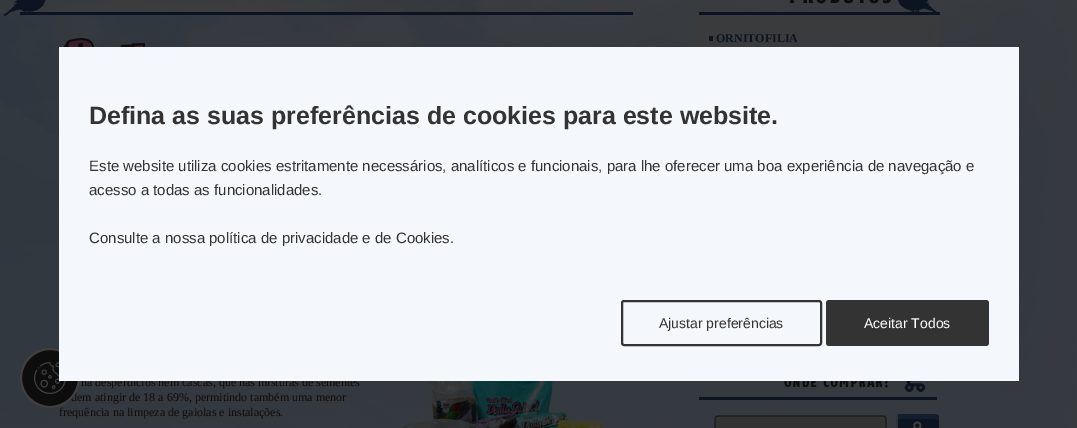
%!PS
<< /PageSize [1077 428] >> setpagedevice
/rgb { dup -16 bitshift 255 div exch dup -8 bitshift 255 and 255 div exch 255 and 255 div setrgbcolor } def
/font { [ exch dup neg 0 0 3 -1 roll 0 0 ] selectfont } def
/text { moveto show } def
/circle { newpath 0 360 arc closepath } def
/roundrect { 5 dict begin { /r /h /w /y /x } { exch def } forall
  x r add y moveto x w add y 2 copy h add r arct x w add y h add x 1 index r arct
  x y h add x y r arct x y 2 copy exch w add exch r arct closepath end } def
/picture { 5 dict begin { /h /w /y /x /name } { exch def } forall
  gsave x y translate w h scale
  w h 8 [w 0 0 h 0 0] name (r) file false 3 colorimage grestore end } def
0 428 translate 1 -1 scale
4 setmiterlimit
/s1 { /LiberationSerif-Bold 12 font 16#0B1520 rgb } def
/s2 { /LiberationSerif-Regular 12 font 16#130A03 rgb } def
/s3 { /LiberationSans-Bold 25 font 16#333333 rgb } def
/s4 { /LiberationSans-Regular 15 font 16#333333 rgb } def
/s5 { /LiberationSans-Regular 14 font 16#333333 rgb } def
/s6 { /LiberationSans-Regular 14 font 16#FFFFFF rgb } def
16#FFFFFF rgb
0 0 1077 428 rectfill
(pic1.raw) 0 0 1077 428 picture
(pic2.raw) 699 0 241 15 picture
(pic3.raw) 699 16 240 31 picture
16#0B1520 rgb
709 36 4 5 rectfill
s1
(ORNITOFILIA) 716 42 text
(pic4.raw) 699 381 238 19 picture
(pic5.raw) 714 415 173 13 picture
(pic6.raw) 896 414 43 14 picture
(pic7.raw) 0 0 633 16 picture
(pic8.raw) 64 38 81 9 picture
s2
(há desperdícios nem cascas, que nas misturas de sementes) 81 386 text
(pic9.raw) 403 381 201 47 picture
(dem atingir de 18 a 69%, permitindo também uma menor) 71 401 text
(frequência na limpeza de gaiolas e instalações.) 59 416 text
16#0D0D0D rgb
50 378 29 circle gsave fill grestore
16#404040 rgb
2 setlinewidth
stroke
(pic10.raw) 34 362 32 32 picture
16#F4F7FC rgb
59 47 960 334 rectfill
s3
(Defina as suas preferências de cookies para este website.) 89 124 text
s4
(Este website utiliza cookies estritamente necessários, analíticos e funcionais, para lhe oferecer uma boa experiência de navegação e) 89 171 text
(acesso a todas as funcionalidades.) 89 195 text
(Consulte a nossa política de privacidade e de Cookies.) 89 243 text
622 301 199 44 2 roundrect stroke
s5
(Ajustar preferências) 659 328 text
826 300 163 46 3 roundrect fill
s6
(Aceitar Todos) 864 328 text
showpage
